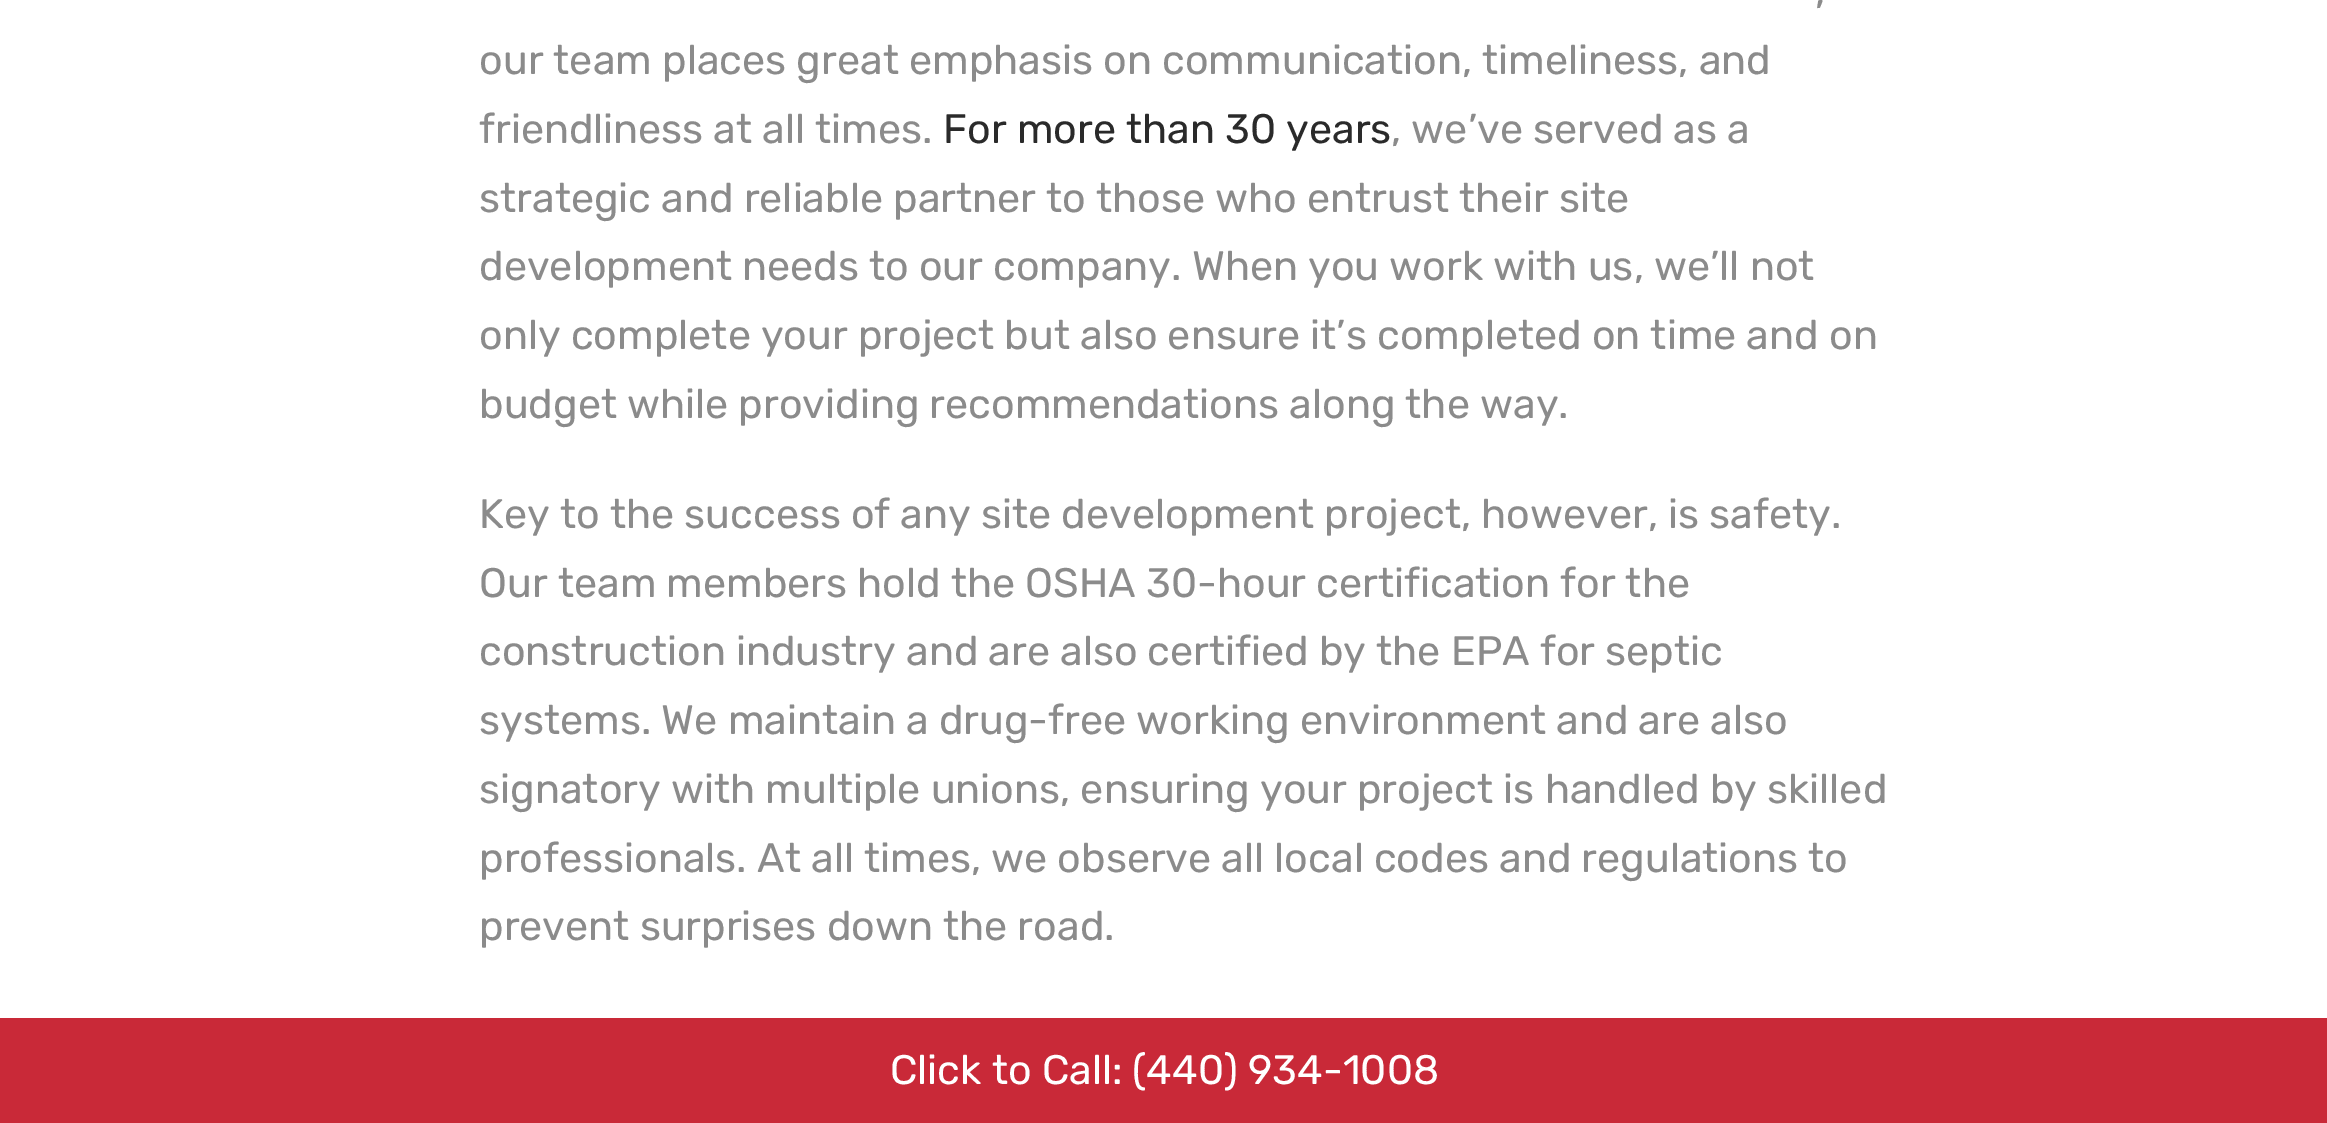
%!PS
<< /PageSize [2327 1123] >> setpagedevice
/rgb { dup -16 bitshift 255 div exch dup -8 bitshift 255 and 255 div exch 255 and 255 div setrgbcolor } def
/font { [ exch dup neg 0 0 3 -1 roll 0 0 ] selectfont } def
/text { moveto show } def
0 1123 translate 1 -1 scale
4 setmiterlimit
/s1 { /Rubik-Regular 41.25 font 16#8B8B8B rgb } def
/s2 { /Rubik-Regular 41.25 font 16#2A2A2A rgb } def
/s3 { /Rubik-Regular 41.25 font 16#FFFFFF rgb } def
16#FFFFFF rgb
0 0 2327 1123 rectfill
s1
(,) 1815 5 text
(our team places great emphasis on communication, timeliness, and) 479 74 text
(friendliness at all times.) 479 143 text
s2
(For more than 30 years) 943 143 text
s1
(, we’ve served as a) 1391 143 text
(strategic and reliable partner to those who entrust their site) 479 212 text
(development needs to our company. When you work with us, we’ll not) 479 280 text
(only complete your project but also ensure it’s completed on time and on) 479 349 text
(budget while providing recommendations along the way.) 479 418 text
(Key to the success of any site development project, however, is safety.) 479 528 text
(Our team members hold the OSHA 30-hour certification for the) 479 597 text
(construction industry and are also certified by the EPA for septic) 479 665 text
(systems. We maintain a drug-free working environment and are also) 479 734 text
(signatory with multiple unions, ensuring your project is handled by skilled) 479 803 text
(professionals. At all times, we observe all local codes and regulations to) 479 872 text
(prevent surprises down the road.) 479 940 text
16#C92938 rgb
0 1018 2327 105 rectfill
s3
(Click to Call: \(440\) 934-1008) 890 1084 text
showpage
